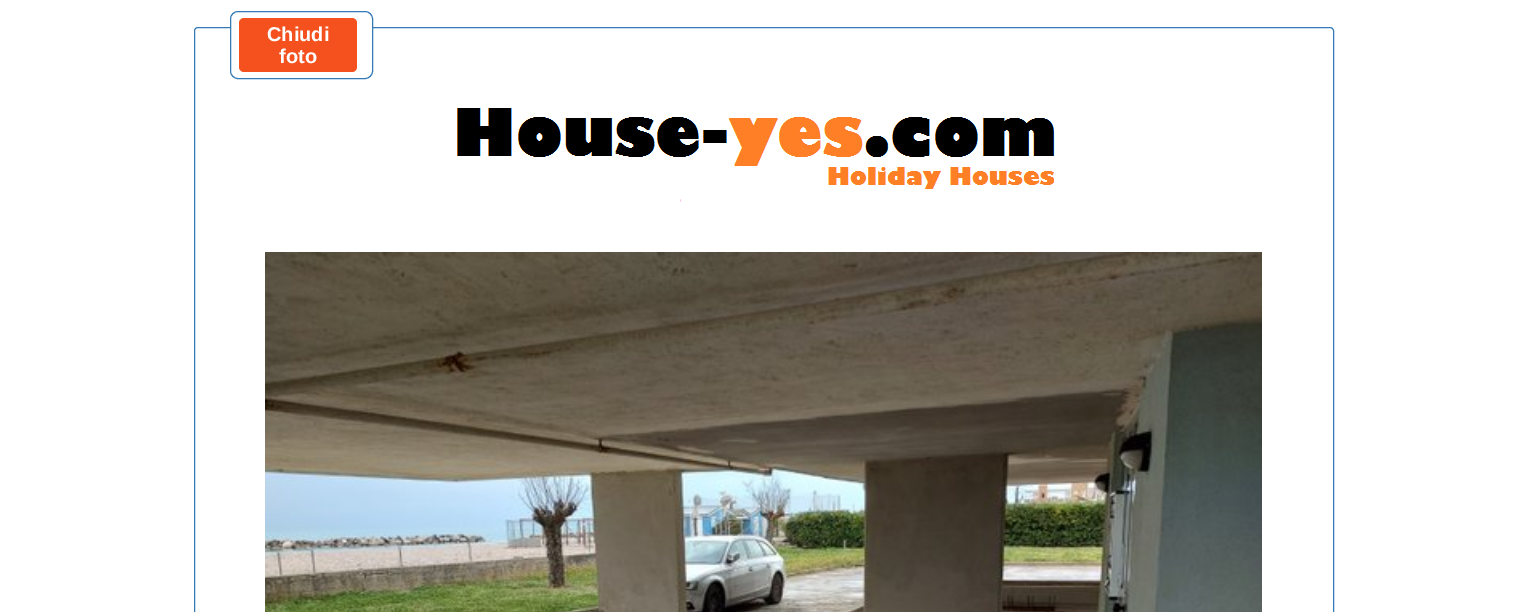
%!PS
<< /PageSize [1527 612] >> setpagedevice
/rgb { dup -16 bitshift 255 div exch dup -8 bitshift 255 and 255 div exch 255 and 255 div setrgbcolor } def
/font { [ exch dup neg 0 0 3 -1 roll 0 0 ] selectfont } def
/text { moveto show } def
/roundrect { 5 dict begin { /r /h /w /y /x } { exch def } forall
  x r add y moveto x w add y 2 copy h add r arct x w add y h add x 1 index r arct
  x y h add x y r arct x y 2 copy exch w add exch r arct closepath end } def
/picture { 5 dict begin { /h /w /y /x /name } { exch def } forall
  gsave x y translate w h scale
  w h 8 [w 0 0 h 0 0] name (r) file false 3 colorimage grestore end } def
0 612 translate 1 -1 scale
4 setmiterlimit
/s1 { /LiberationSans-Bold 20 font 16#FFFFFF rgb } def
16#FFFFFF rgb
0 0 1527 612 rectfill
16#337AB7 rgb
194.5 27.5 1139 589 3.5 roundrect stroke
16#FFFFFF rgb
230.5 11.5 142 67 7.5 roundrect gsave fill grestore
16#337AB7 rgb
stroke
16#F4511E rgb
239 18 118 54 5 roundrect fill
s1
(Chiudi) 267 41 text
(foto) 279 63 text
(pic1.raw) 457 108 598 94 picture
(pic2.raw) 265 252 997 360 picture
showpage
